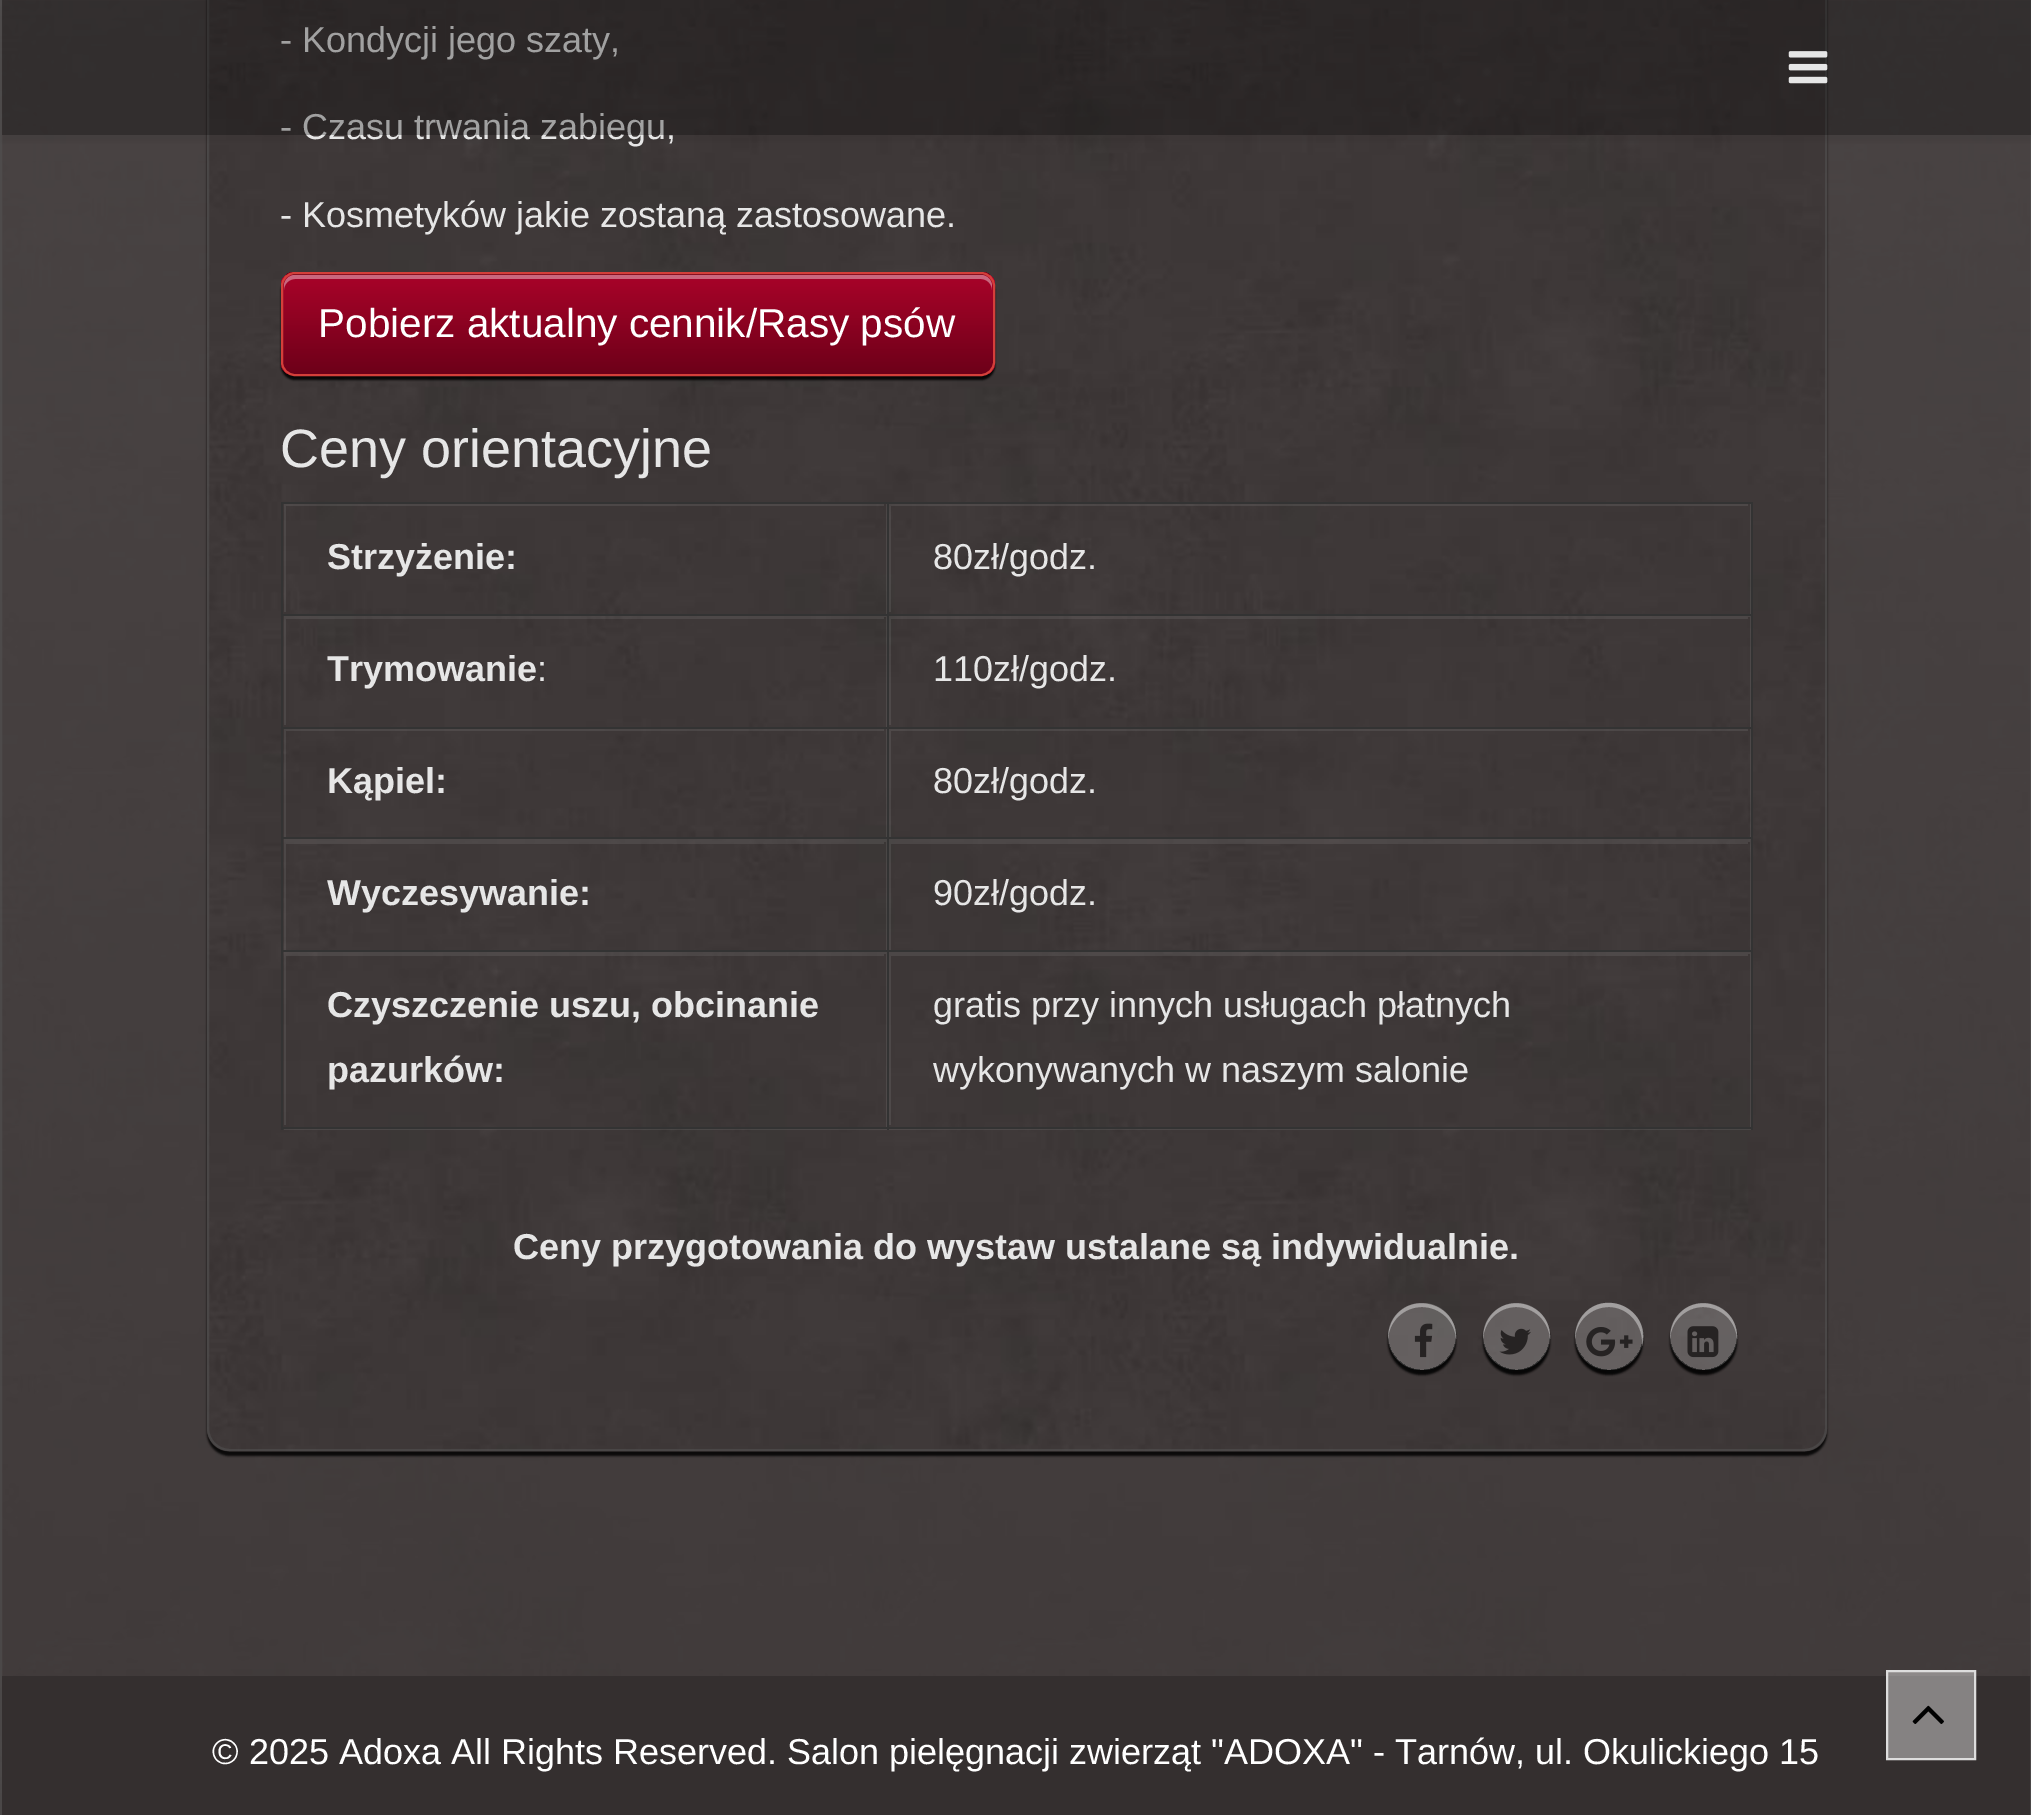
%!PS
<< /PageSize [2031 1815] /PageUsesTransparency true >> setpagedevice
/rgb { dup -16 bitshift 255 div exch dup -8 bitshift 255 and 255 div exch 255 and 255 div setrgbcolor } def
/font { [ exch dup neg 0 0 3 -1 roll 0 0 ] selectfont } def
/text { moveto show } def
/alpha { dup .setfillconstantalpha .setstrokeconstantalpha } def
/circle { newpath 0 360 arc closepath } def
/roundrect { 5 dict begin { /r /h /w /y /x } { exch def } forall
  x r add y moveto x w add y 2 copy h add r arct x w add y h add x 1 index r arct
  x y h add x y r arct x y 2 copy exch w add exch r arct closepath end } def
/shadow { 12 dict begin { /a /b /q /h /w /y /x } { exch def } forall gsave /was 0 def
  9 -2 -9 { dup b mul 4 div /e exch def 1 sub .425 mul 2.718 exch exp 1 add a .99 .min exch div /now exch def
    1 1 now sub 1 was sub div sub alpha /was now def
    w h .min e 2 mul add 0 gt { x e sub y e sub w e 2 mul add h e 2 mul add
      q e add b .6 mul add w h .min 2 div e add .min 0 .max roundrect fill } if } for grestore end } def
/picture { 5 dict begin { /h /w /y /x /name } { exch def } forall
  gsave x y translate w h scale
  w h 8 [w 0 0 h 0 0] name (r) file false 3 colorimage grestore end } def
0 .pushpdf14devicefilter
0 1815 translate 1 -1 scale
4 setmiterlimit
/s1 { /LiberationSans-Regular 36 font 16#E6E6E6 rgb } def
/s2 { /LiberationSans-Regular 40.5 font 16#FFFFFF rgb } def
/s3 { /LiberationSans-Regular 54 font 16#E6E6E6 rgb } def
/s4 { /LiberationSans-Bold 36 font 16#E6E6E6 rgb } def
/s5 { /LiberationSans-Regular 36 font 16#FFFFFF rgb } def
16#FFFFFF rgb
0 0 2031 1815 rectfill
(pic1.raw) 0 0 2031 1815 picture
0.5 alpha
16#545454 rgb
2 setlinewidth
1 -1 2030 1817 rectstroke
1 alpha
16#000000 rgb
207 -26 1620 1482 23 1 0.85 shadow
(pic3.raw) 207 0 1620 1452 picture
0.5 alpha
16#545454 rgb
208 -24 1618 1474 22 roundrect stroke
gsave
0 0 moveto 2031 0 lineto 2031 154 lineto 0 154 lineto closepath 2 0 moveto 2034 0 lineto 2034 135 lineto 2 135 lineto closepath eoclip newpath
1 alpha
16#000000 rgb
2 7 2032 135 0 3.5 0.05 shadow
grestore
1 alpha
s1
(- Kondycji jego szaty,) 280 52 text
(- Czasu trwania zabiegu,) 280 139 text
0.3 alpha
16#000000 rgb
2 0 2029 135 rectfill
1 alpha
(pic2.raw) 1788 51 40 33 picture
s1
(- Kosmetyków jakie zostaną zastosowane.) 280 227 text
16#000000 rgb
281 277 714 103 14 1 0.9 shadow
gsave
281 272 714 104 14 roundrect clip newpath
gsave 281 272 moveto 995 272 lineto 995 275 lineto 281 275 lineto closepath clip newpath
<< /ShadingType 2 /ColorSpace /DeviceRGB /Coords [638 175 638 275] /Extend [true true] /Function << /FunctionType 3 /Domain [0 1] /Functions [<< /FunctionType 2 /Domain [0 1] /C0 [0.663 0.012 0.161] /C1 [0.561 0.008 0.133] /N 1 >> << /FunctionType 2 /Domain [0 1] /C0 [0.561 0.008 0.133] /C1 [0.427 0 0.098] /N 1 >>] /Bounds [0.44] /Encode [0 1 0 1] >> >> shfill grestore
gsave 281 275 moveto 995 275 lineto 995 374 lineto 281 374 lineto closepath clip newpath
<< /ShadingType 2 /ColorSpace /DeviceRGB /Coords [638 274 638 374] /Extend [true true] /Function << /FunctionType 3 /Domain [0 1] /Functions [<< /FunctionType 2 /Domain [0 1] /C0 [0.663 0.012 0.161] /C1 [0.561 0.008 0.133] /N 1 >> << /FunctionType 2 /Domain [0 1] /C0 [0.561 0.008 0.133] /C1 [0.427 0 0.098] /N 1 >>] /Bounds [0.44] /Encode [0 1 0 1] >> >> shfill grestore
grestore
0.4 alpha
16#FFFFFF rgb
295 279 moveto 981 279 lineto 987 279 992 284 992 290 curveto 992 286 lineto 992 280 987 275 981 275 curveto 295 275 lineto 289 275 284 280 284 286 curveto 284 290 lineto 284 284 289 279 295 279 curveto closepath fill
1 alpha
16#D43F3A rgb
282 273 712 102 13 roundrect stroke
s2
(Pobierz aktualny cennik/Rasy psów) 318 337 text
s3
(Ceny orientacyjne) 280 467 text
0.08 alpha
16#FFFFFF rgb
284 614 moveto 284 617 lineto 889 617 lineto 889 504 lineto 886 504 lineto 886 614 lineto closepath fill
gsave
284 504 600 108 rectclip
61 281 moveto 1107 281 lineto 1107 835 lineto 61 835 lineto closepath 286 506 moveto 886 506 lineto 886 614 lineto 286 614 lineto closepath eofill
grestore
1 alpha
16#333333 rgb
887 502 866 2 rectfill
0.08 alpha
16#FFFFFF rgb
889 614 moveto 889 617 lineto 1753 617 lineto 1753 504 lineto 1750 504 lineto 1750 614 lineto closepath fill
1 alpha
16#333333 rgb
887 614 866 2 rectfill
0.08 alpha
16#FFFFFF rgb
284 727 moveto 284 729 lineto 889 729 lineto 889 617 lineto 886 617 lineto 886 727 lineto closepath fill
889 727 moveto 889 729 lineto 1753 729 lineto 1753 617 lineto 1750 617 lineto 1750 727 lineto closepath fill
1 alpha
16#333333 rgb
887 727 866 2 rectfill
0.08 alpha
16#FFFFFF rgb
284 839 moveto 284 842 lineto 889 842 lineto 889 729 lineto 886 729 lineto 886 839 lineto closepath fill
889 839 moveto 889 842 lineto 1753 842 lineto 1753 729 lineto 1750 729 lineto 1750 839 lineto closepath fill
1 alpha
16#333333 rgb
887 837 866 2 rectfill
0.08 alpha
16#FFFFFF rgb
284 952 moveto 284 954 lineto 889 954 lineto 889 842 lineto 886 842 lineto 886 952 lineto closepath fill
889 952 moveto 889 954 lineto 1753 954 lineto 1753 842 lineto 1750 842 lineto 1750 952 lineto closepath fill
1 alpha
16#333333 rgb
887 950 866 2 rectfill
0.08 alpha
16#FFFFFF rgb
284 1127 moveto 284 1130 lineto 889 1130 lineto 889 954 lineto 886 954 lineto 886 1127 lineto closepath fill
889 1127 moveto 889 1130 lineto 1753 1130 lineto 1753 954 lineto 1750 954 lineto 1750 1127 lineto closepath fill
1 alpha
16#333333 rgb
1751 950 2 180 rectfill
887 1127 866 2 rectfill
887 950 2 180 rectfill
281 950 608 2 rectfill
887 837 2 115 rectfill
281 837 608 2 rectfill
887 727 2 112 rectfill
281 727 608 2 rectfill
887 614 2 115 rectfill
281 614 608 2 rectfill
887 502 2 115 rectfill
281 502 608 2 rectfill
281 1127 608 2 rectfill
281 950 2 180 rectfill
281 837 2 115 rectfill
281 727 2 112 rectfill
281 614 2 115 rectfill
281 502 2 115 rectfill
s4
(Strzyżenie:) 327 569 text
gsave
889 504 859 108 rectclip
0.08 alpha
16#FFFFFF rgb
666 281 moveto 1971 281 lineto 1971 835 lineto 666 835 lineto closepath 891 506 moveto 1750 506 lineto 1750 614 lineto 891 614 lineto closepath eofill
grestore
16#333333 rgb
1751 837 2 115 rectfill
1751 727 2 112 rectfill
1751 614 2 115 rectfill
1751 502 2 115 rectfill
s1
(80zł/godz.) 933 569 text
gsave
284 617 600 108 rectclip
0.08 alpha
16#FFFFFF rgb
61 394 moveto 1107 394 lineto 1107 947 lineto 61 947 lineto closepath 286 619 moveto 886 619 lineto 886 727 lineto 286 727 lineto closepath eofill
grestore
s4
(Trymowanie) 327 681 text
s1
(:) 537 681 text
gsave
889 617 859 108 rectclip
0.08 alpha
16#FFFFFF rgb
666 394 moveto 1971 394 lineto 1971 947 lineto 666 947 lineto closepath 891 619 moveto 1750 619 lineto 1750 727 lineto 891 727 lineto closepath eofill
grestore
(110zł/godz.) 933 681 text
gsave
284 729 600 108 rectclip
0.08 alpha
16#FFFFFF rgb
61 506 moveto 1107 506 lineto 1107 1060 lineto 61 1060 lineto closepath 286 731 moveto 886 731 lineto 886 839 lineto 286 839 lineto closepath eofill
grestore
s4
(Kąpiel:) 327 793 text
gsave
889 729 859 108 rectclip
0.08 alpha
16#FFFFFF rgb
666 506 moveto 1971 506 lineto 1971 1060 lineto 666 1060 lineto closepath 891 731 moveto 1750 731 lineto 1750 839 lineto 891 839 lineto closepath eofill
grestore
s1
(80zł/godz.) 933 793 text
gsave
284 842 600 108 rectclip
0.08 alpha
16#FFFFFF rgb
61 619 moveto 1107 619 lineto 1107 1172 lineto 61 1172 lineto closepath 286 844 moveto 886 844 lineto 886 952 lineto 286 952 lineto closepath eofill
grestore
s4
(Wyczesywanie:) 327 905 text
gsave
889 842 859 108 rectclip
0.08 alpha
16#FFFFFF rgb
666 619 moveto 1971 619 lineto 1971 1172 lineto 666 1172 lineto closepath 891 844 moveto 1750 844 lineto 1750 952 lineto 891 952 lineto closepath eofill
grestore
s1
(90zł/godz.) 933 905 text
gsave
284 954 600 171 rectclip
0.08 alpha
16#FFFFFF rgb
61 731 moveto 1107 731 lineto 1107 1348 lineto 61 1348 lineto closepath 286 956 moveto 886 956 lineto 886 1127 lineto 286 1127 lineto closepath eofill
grestore
s4
(Czyszczenie uszu, obcinanie) 327 1017 text
(pazurków:) 327 1082 text
gsave
889 954 859 171 rectclip
0.08 alpha
16#FFFFFF rgb
666 731 moveto 1971 731 lineto 1971 1348 lineto 666 1348 lineto closepath 891 956 moveto 1750 956 lineto 1750 1127 lineto 891 1127 lineto closepath eofill
grestore
s1
(gratis przy innych usługach płatnych) 933 1017 text
(wykonywanych w naszym salonie) 933 1082 text
s4
(Ceny przygotowania do wystaw ustalane są indywidualnie.) 513 1259 text
gsave
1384 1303 moveto 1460 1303 lineto 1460 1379 lineto 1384 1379 lineto closepath 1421.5 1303 moveto 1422.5 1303 lineto 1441 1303 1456 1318 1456 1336.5 curveto 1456 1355 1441 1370 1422.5 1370 curveto 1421.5 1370 lineto 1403 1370 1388 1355 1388 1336.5 curveto 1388 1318 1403 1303 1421.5 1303 curveto closepath eoclip newpath
16#000000 rgb
1388 1307 68 68 34 1 0.9 shadow
grestore
0.2 alpha
16#FFFFFF rgb
1388 1303 68 67 33.5 roundrect fill
0.4 alpha
1422 1307 moveto 1440 1307 1455 1321 1456 1339 curveto 1458 1305 1413 1290 1394 1318 curveto 1390 1324 1388 1331 1388 1339 curveto 1389 1321 1404 1307 1422 1307 curveto closepath fill
1 alpha
(pic4.raw) 1414 1323 19 35 picture
gsave
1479 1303 moveto 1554 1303 lineto 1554 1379 lineto 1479 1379 lineto closepath 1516.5 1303 moveto 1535 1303 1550 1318 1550 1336.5 curveto 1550 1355 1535 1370 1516.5 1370 curveto 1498 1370 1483 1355 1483 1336.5 curveto 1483 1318 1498 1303 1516.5 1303 curveto closepath eoclip newpath
16#000000 rgb
1483 1307 67 68 33.5 1 0.9 shadow
grestore
0.2 alpha
1516.5 1336.5 33.5 circle fill
0.4 alpha
1516 1307 moveto 1534 1307 1549 1321 1550 1339 curveto 1552 1305 1508 1290 1489 1318 curveto 1485 1324 1483 1331 1483 1339 curveto 1484 1321 1499 1307 1516 1307 curveto closepath fill
1 alpha
(pic5.raw) 1499 1328 32 27 picture
gsave
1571 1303 moveto 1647 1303 lineto 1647 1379 lineto 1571 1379 lineto closepath 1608.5 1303 moveto 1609.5 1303 lineto 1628 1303 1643 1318 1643 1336.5 curveto 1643 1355 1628 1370 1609.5 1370 curveto 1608.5 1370 lineto 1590 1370 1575 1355 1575 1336.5 curveto 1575 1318 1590 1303 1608.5 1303 curveto closepath eoclip newpath
16#000000 rgb
1575 1307 68 68 34 1 0.9 shadow
grestore
0.2 alpha
1575 1303 68 67 33.5 roundrect fill
0.4 alpha
1609 1307 moveto 1629 1307 1644 1326 1642 1346 curveto 1652 1309 1602 1286 1581 1318 curveto 1577 1324 1575 1331 1575 1339 curveto 1576 1321 1591 1307 1609 1307 curveto closepath fill
1 alpha
(pic6.raw) 1586 1327 47 30 picture
gsave
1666 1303 moveto 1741 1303 lineto 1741 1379 lineto 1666 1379 lineto closepath 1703.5 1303 moveto 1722 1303 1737 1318 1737 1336.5 curveto 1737 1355 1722 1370 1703.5 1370 curveto 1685 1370 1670 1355 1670 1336.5 curveto 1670 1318 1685 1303 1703.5 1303 curveto closepath eoclip newpath
16#000000 rgb
1670 1307 67 68 33.5 1 0.9 shadow
grestore
0.2 alpha
1703.5 1336.5 33.5 circle fill
0.4 alpha
1703 1307 moveto 1721 1307 1736 1321 1737 1339 curveto 1739 1305 1695 1290 1676 1318 curveto 1672 1324 1670 1331 1670 1339 curveto 1671 1321 1686 1307 1703 1307 curveto closepath fill
1 alpha
(pic7.raw) 1687 1326 32 32 picture
16#342F2F rgb
2 1676 2028 139 rectfill
s5
(© 2025 Adoxa All Rights Reserved. Salon pielęgnacji zwierząt "ADOXA" - Tarnów, ul. Okulickiego 15) 212 1764 text
0.4 alpha
1887 1671 moveto 1975 1671 lineto 1975 1759 lineto 1887 1759 lineto closepath fill
1 alpha
16#DDDDDD rgb
1887 1671 moveto 1975 1671 lineto 1975 1759 lineto 1887 1759 lineto closepath stroke
(pic8.raw) 1912 1705 32 19 picture
.poppdf14devicefilter showpage
